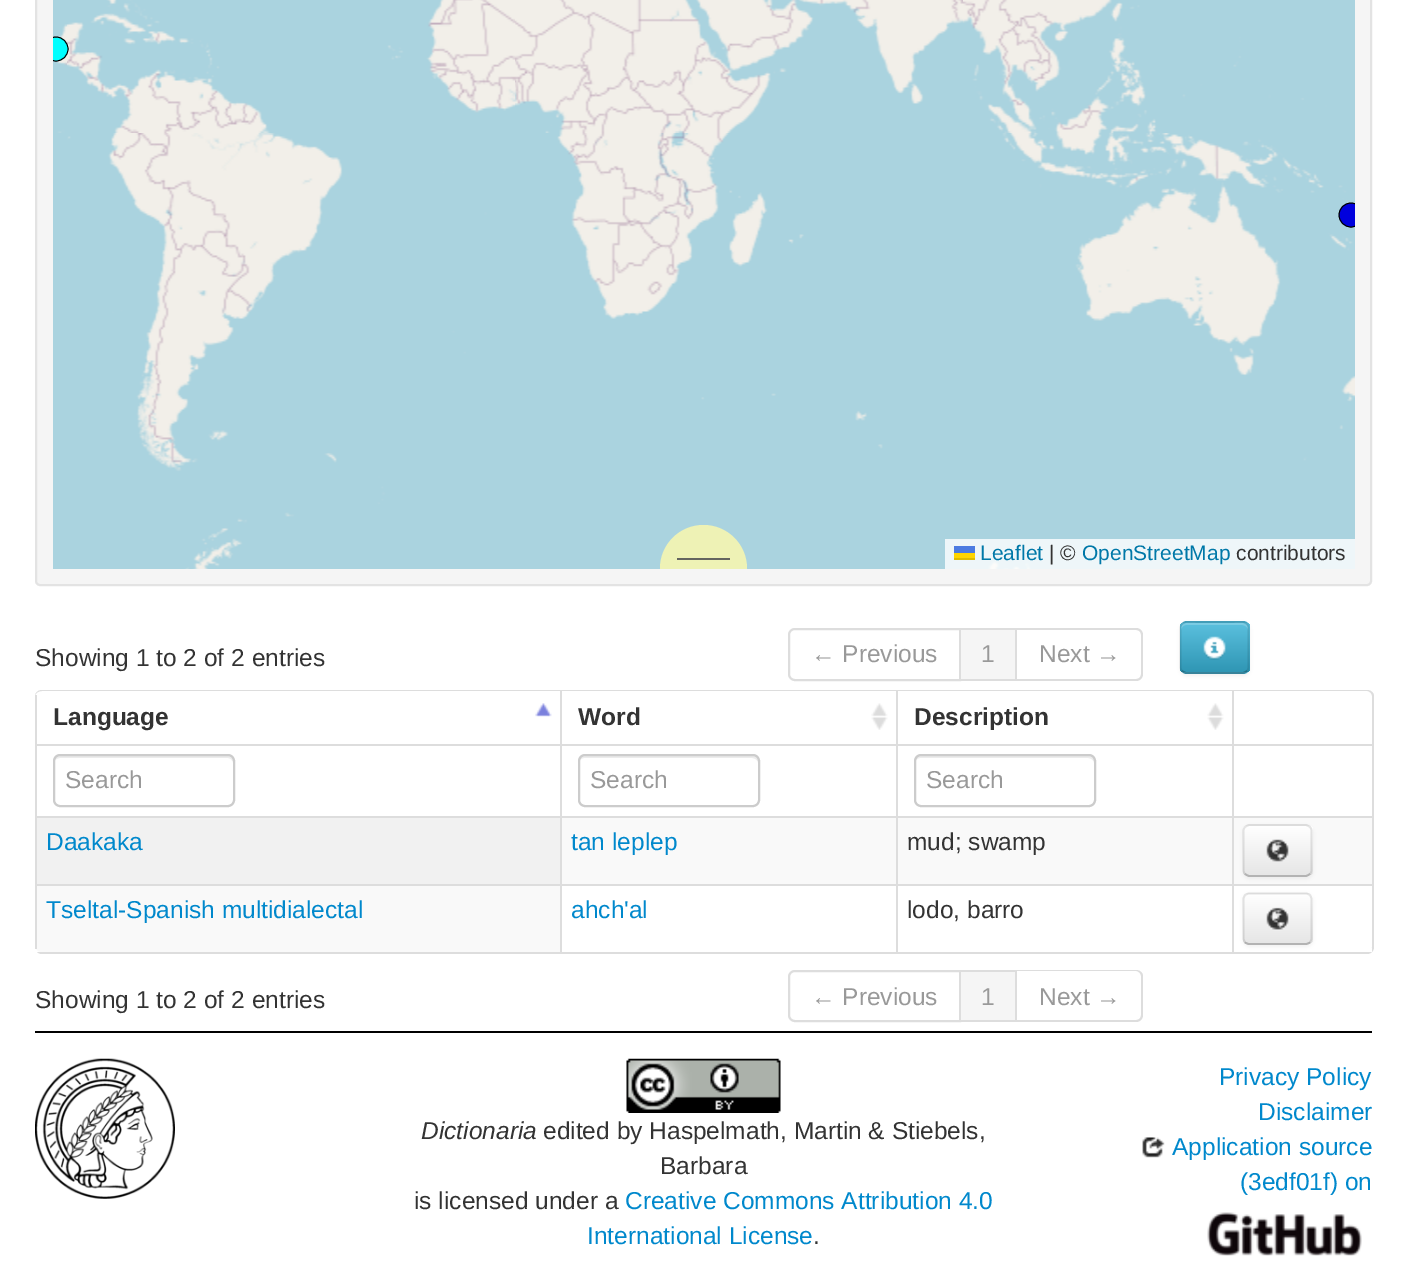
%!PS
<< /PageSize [1407 1269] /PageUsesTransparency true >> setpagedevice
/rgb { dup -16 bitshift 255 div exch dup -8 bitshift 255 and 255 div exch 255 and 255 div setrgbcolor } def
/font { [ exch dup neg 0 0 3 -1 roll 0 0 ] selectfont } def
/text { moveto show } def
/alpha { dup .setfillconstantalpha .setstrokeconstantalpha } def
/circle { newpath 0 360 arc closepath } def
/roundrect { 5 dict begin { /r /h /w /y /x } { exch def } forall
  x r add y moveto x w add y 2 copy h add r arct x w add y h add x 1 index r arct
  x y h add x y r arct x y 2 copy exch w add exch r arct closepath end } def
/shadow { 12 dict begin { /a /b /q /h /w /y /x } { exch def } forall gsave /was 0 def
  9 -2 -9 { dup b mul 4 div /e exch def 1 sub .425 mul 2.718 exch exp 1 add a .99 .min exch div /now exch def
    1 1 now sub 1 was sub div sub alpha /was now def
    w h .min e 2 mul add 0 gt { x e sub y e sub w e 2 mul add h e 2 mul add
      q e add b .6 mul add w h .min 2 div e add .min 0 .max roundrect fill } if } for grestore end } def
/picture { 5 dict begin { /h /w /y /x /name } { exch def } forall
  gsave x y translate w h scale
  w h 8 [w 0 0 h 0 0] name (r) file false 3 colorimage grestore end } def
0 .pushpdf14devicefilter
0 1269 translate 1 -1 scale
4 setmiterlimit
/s1 { /LiberationSans-Regular 21 font 16#0078A8 rgb } def
/s2 { /LiberationSans-Regular 21 font 16#333333 rgb } def
/s3 { /LiberationSans-Regular 24.5 font 16#333333 rgb } def
/s4 { /LiberationSans-Regular 24.5 font 16#999999 rgb } def
/s5 { /LiberationSans-Bold 24.5 font 16#333333 rgb } def
/s6 { /LiberationSans-Regular 24.5 font 16#0088CC rgb } def
/s7 { /LiberationSans-Italic 24.5 font 16#333333 rgb } def
16#FFFFFF rgb
0 0 1407 1269 rectfill
16#F5F5F5 rgb
36 -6 1335 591 4 roundrect gsave fill grestore
16#E3E3E3 rgb
2 setlinewidth
stroke
(pic1.raw) 53 0 14 133 picture
(pic2.raw) 67 0 448 133 picture
(pic3.raw) 515 0 448 133 picture
(pic4.raw) 963 0 392 133 picture
16#AAD3DF rgb
53 133 14 436 rectfill
(pic5.raw) 67 133 448 436 picture
(pic6.raw) 515 133 448 436 picture
(pic7.raw) 963 133 392 436 picture
gsave
53 32 21 35 rectclip
16#00FFFF rgb
56 49 12 circle gsave fill grestore
16#000000 rgb
0.9 setlinewidth
stroke
grestore
gsave
1334 198 21 35 rectclip
16#0000DD rgb
1351 215 12 circle gsave fill grestore
16#000000 rgb
0.9 setlinewidth
stroke
grestore
16#EEF2B5 rgb
703.5 525 moveto 727.5 525 747 544.5 747 568.5 curveto 747 569 lineto 660 569 lineto 660 568.5 lineto 660 544.5 679.5 525 703.5 525 curveto closepath fill
16#64655F rgb
677 558 53 2 rectfill
0.8 alpha
16#FFFFFF rgb
945 539 410 30 rectfill
1 alpha
s1
(Leaflet) 980 560 text
16#4C7BE1 rgb
954 546 21 7 rectfill
16#FFD500 rgb
954 553 21 5 rectfill
16#E0BC00 rgb
954 558 21 2 rectfill
s2
(| ©) 1049 560 text
s1
(OpenStreetMap) 1082 560 text
s2
(contributors) 1236 560 text
s3
(Showing 1 to 2 of 2 entries) 35 666 text
16#DDDDDD rgb
795 629 moveto 960 629 lineto 960 680 lineto 795 680 lineto 791.5 680 789 677.5 789 674 curveto 789 635 lineto 789 631.5 791.5 629 795 629 curveto closepath stroke
s4
(← Previous) 811 662 text
16#F5F5F5 rgb
961 630 54 49 rectfill
16#DDDDDD rgb
961 628 56 2 rectfill
1015 628 2 53 rectfill
961 679 56 2 rectfill
s4
(1) 981 662 text
16#DDDDDD rgb
1017 628 moveto 1136 628 lineto 1140 628 1143 631 1143 635 curveto 1143 674 lineto 1143 678 1140 681 1136 681 curveto 1017 681 lineto closepath 1017 630 moveto 1136 630 lineto 1139 630 1141 632 1141 635 curveto 1141 674 lineto 1141 677 1139 679 1136 679 curveto 1017 679 lineto closepath eofill
s4
(Next →) 1039 662 text
16#000000 rgb
1180 623 70 53 7 2 0.05 shadow
16#49AFCD rgb
1180 621 70 53 7 roundrect fill
gsave
1180 621 70 53 7 roundrect clip newpath
gsave 1180 623 moveto 1250 623 lineto 1250 672 lineto 1180 672 lineto closepath clip newpath
<< /ShadingType 2 /ColorSpace /DeviceRGB /Coords [1215 623 1215 672] /Extend [true true] /Function << /FunctionType 2 /Domain [0 1] /C0 [0.357 0.753 0.871] /C1 [0.184 0.588 0.706] /N 1 >> >> shfill grestore
grestore
0.2 alpha
16#FFFFFF rgb
1186 625 moveto 1242 625 lineto 1245 625 1248 627 1248 630 curveto 1248 621 1241 623 1234 623 curveto 1196 623 lineto 1188 623 1181 621 1181 630 curveto 1181 627 1184 625 1186 625 curveto closepath fill
0.25 alpha
16#000000 rgb
1.8 setlinewidth
1247 671 moveto 1245.5 672 1244 673 1242.5 673 curveto 1186.5 673 lineto 1185 673 1183.5 672 1182 671 curveto stroke
0.1 alpha
1182 671 moveto 1181 670 1180.5 668.5 1180.5 667 curveto 1180.5 628 lineto 1180.5 626.5 1181 625 1182 624 curveto 1183.5 623 1185 622 1186.5 622 curveto 1242.5 622 lineto 1244 622 1245.5 623 1247 624 curveto 1248 625 1248.5 626.5 1248.5 628 curveto 1248.5 667 lineto 1248.5 668.5 1248 670 1247 671 curveto stroke
1 alpha
(pic8.raw) 1203 636 23 24 picture
16#DDDDDD rgb
42 690 moveto 1367 690 lineto 1371 690 1374 693 1374 696 curveto 1374 947 lineto 1374 951 1371 954 1367 954 curveto 42 954 lineto 38 954 35 951 35 947 curveto 35 696 lineto 35 693 38 690 42 690 curveto closepath 42 691 moveto 1367 691 lineto 1370 691 1372 694 1372 696 curveto 1372 947 lineto 1372 950 1370 952 1367 952 curveto 42 952 lineto 38 952 35 950 35 947 curveto 35 696 lineto 35 694 38 691 42 691 curveto closepath eofill
(pic9.raw) 535 703 17 14 picture
35 695 2 49 rectfill
s5
(Language) 53 725 text
(pic10.raw) 871 703 17 27 picture
16#DDDDDD rgb
560 691 2 53 rectfill
s5
(Word) 578 725 text
(pic10.raw) 1207 703 17 27 picture
16#DDDDDD rgb
896 691 2 53 rectfill
s5
(Description) 914 725 text
16#DDDDDD rgb
1232 691 2 53 rectfill
35 744 1337 2 rectfill
35 744 2 72 rectfill
16#ECECEC rgb
60 758 moveto 228 758 lineto 230 758 233 760 233 763 curveto 233 761 lineto 233 758 231 756 228 756 curveto 59 756 lineto 56 756 54 758 54 761 curveto 54 763 lineto 54 760 57 758 60 758 curveto closepath fill
16#CCCCCC rgb
2 setlinewidth
54 755 180 51 6 roundrect stroke
s4
(Search) 65 788 text
16#DDDDDD rgb
560 744 2 72 rectfill
16#ECECEC rgb
584 758 moveto 752 758 lineto 755 758 758 760 758 763 curveto 758 761 lineto 758 758 756 756 753 756 curveto 584 756 lineto 581 756 579 758 579 761 curveto 579 763 lineto 579 760 582 758 584 758 curveto closepath fill
16#CCCCCC rgb
579 755 180 51 6 roundrect stroke
s4
(Search) 590 788 text
16#DDDDDD rgb
896 744 2 72 rectfill
16#ECECEC rgb
920 758 moveto 1088 758 lineto 1091 758 1094 760 1094 763 curveto 1094 761 lineto 1094 758 1092 756 1089 756 curveto 920 756 lineto 917 756 915 758 915 761 curveto 915 763 lineto 915 760 918 758 920 758 curveto closepath fill
16#CCCCCC rgb
915 755 180 51 6 roundrect stroke
s4
(Search) 926 788 text
16#DDDDDD rgb
1232 744 2 72 rectfill
16#F9F9F9 rgb
562 818 810 66 rectfill
16#F1F1F1 rgb
37 818 523 66 rectfill
16#DDDDDD rgb
35 816 1337 2 rectfill
35 816 2 68 rectfill
s6
(Daakaka) 46 850 text
16#DDDDDD rgb
560 816 2 68 rectfill
s6
(tan leplep) 571 850 text
16#DDDDDD rgb
896 816 2 68 rectfill
s3
(mud; swamp) 907 850 text
16#DDDDDD rgb
1232 816 2 68 rectfill
16#FFFFFF rgb
35 948 1337 4 rectfill
16#F9F9F9 rgb
35 884 moveto 560 884 lineto 560 952 lineto 42 952 lineto 38 952 35 949 35 945 curveto closepath fill
16#DDDDDD rgb
35 884 1337 2 rectfill
16#000000 rgb
1243 826 70 53 7 2 0.05 shadow
16#F5F5F5 rgb
1243 824 70 53 7 roundrect fill
gsave
1243 824 70 53 7 roundrect clip newpath
gsave 1243 826 moveto 1313 826 lineto 1313 875 lineto 1243 875 lineto closepath clip newpath
<< /ShadingType 2 /ColorSpace /DeviceRGB /Coords [1278 826 1278 875] /Extend [true true] /Function << /FunctionType 2 /Domain [0 1] /C0 [1 1 1] /C1 [0.902 0.902 0.902] /N 1 >> >> shfill grestore
grestore
16#B3B3B3 rgb
1.8 setlinewidth
1310 874 moveto 1308.5 875 1307 876 1305.5 876 curveto 1249.5 876 lineto 1248 876 1246.5 875 1245 874 curveto stroke
0.1 alpha
16#000000 rgb
1245 874 moveto 1244 873 1243.5 871.5 1243.5 870 curveto 1243.5 831 lineto 1243.5 829.5 1244 828 1245 827 curveto 1246.5 826 1248 825 1249.5 825 curveto 1305.5 825 lineto 1307 825 1308.5 826 1310 827 curveto 1311 828 1311.5 829.5 1311.5 831 curveto 1311.5 870 lineto 1311.5 871.5 1311 873 1310 874 curveto stroke
1 alpha
(pic11.raw) 1266 839 23 23 picture
16#DDDDDD rgb
35 884 2 65 rectfill
s6
(Tseltal-Spanish multidialectal) 46 918 text
16#DDDDDD rgb
560 884 2 68 rectfill
s6
(ahch'al) 571 918 text
16#DDDDDD rgb
896 884 2 68 rectfill
s3
(lodo, barro) 907 918 text
16#DDDDDD rgb
1232 884 2 68 rectfill
16#000000 rgb
1243 894 70 53 7 2 0.05 shadow
16#F5F5F5 rgb
1243 893 70 52 7 roundrect fill
gsave
1243 893 70 52 7 roundrect clip newpath
gsave 1243 894 moveto 1313 894 lineto 1313 943 lineto 1243 943 lineto closepath clip newpath
<< /ShadingType 2 /ColorSpace /DeviceRGB /Coords [1278 894 1278 943] /Extend [true true] /Function << /FunctionType 2 /Domain [0 1] /C0 [1 1 1] /C1 [0.902 0.902 0.902] /N 1 >> >> shfill grestore
grestore
16#B3B3B3 rgb
1310 942.5 moveto 1308.5 943.5 1307 944 1305.5 944 curveto 1249.5 944 lineto 1248 944 1246.5 943.5 1245 942.5 curveto stroke
0.1 alpha
16#000000 rgb
1245 942.5 moveto 1244 941 1243.5 939.5 1243.5 938 curveto 1243.5 899.5 lineto 1243.5 898 1244 896.5 1245 895 curveto 1246.5 894 1248 893.5 1249.5 893.5 curveto 1305.5 893.5 lineto 1307 893.5 1308.5 894 1310 895 curveto 1311 896.5 1311.5 898 1311.5 899.5 curveto 1311.5 938 lineto 1311.5 939.5 1311 941 1310 942.5 curveto stroke
1 alpha
(pic12.raw) 1266 907 23 24 picture
s3
(Showing 1 to 2 of 2 entries) 35 1008 text
16#DDDDDD rgb
2 setlinewidth
795 971 moveto 960 971 lineto 960 1021 lineto 795 1021 lineto 791.5 1021 789 1018.5 789 1015 curveto 789 977 lineto 789 973.5 791.5 971 795 971 curveto closepath stroke
s4
(← Previous) 811 1005 text
16#F5F5F5 rgb
961 972 54 48 rectfill
16#DDDDDD rgb
961 970 56 2 rectfill
1015 970 2 52 rectfill
961 1020 56 2 rectfill
s4
(1) 981 1005 text
16#DDDDDD rgb
1017 970 moveto 1136 970 lineto 1140 970 1143 973 1143 976 curveto 1143 1015 lineto 1143 1019 1140 1022 1136 1022 curveto 1017 1022 lineto closepath 1017 971 moveto 1136 971 lineto 1139 971 1141 974 1141 976 curveto 1141 1015 lineto 1141 1018 1139 1020 1136 1020 curveto 1017 1020 lineto closepath eofill
s4
(Next →) 1039 1005 text
16#000000 rgb
35 1031 1337 2 rectfill
(pic13.raw) 35 1058 140 141 picture
(pic14.raw) 626 1058 155 55 picture
s7
(Dictionaria) 421 1139 text
s3
(edited by Haspelmath, Martin & Stiebels,) 543 1139 text
(Barbara) 660 1174 text
(is licensed under a) 414 1209 text
s6
(Creative Commons Attribution 4.0) 625 1209 text
(International License) 587 1244 text
s3
(.) 813 1244 text
s6
(Privacy Policy) 1219 1085 text
(Disclaimer) 1258 1120 text
(pic15.raw) 1142 1137 23 21 picture
(Application source) 1172 1155 text
(\(3edf01f\) on) 1240 1190 text
(pic16.raw) 1207 1212 155 44 picture
.poppdf14devicefilter showpage
